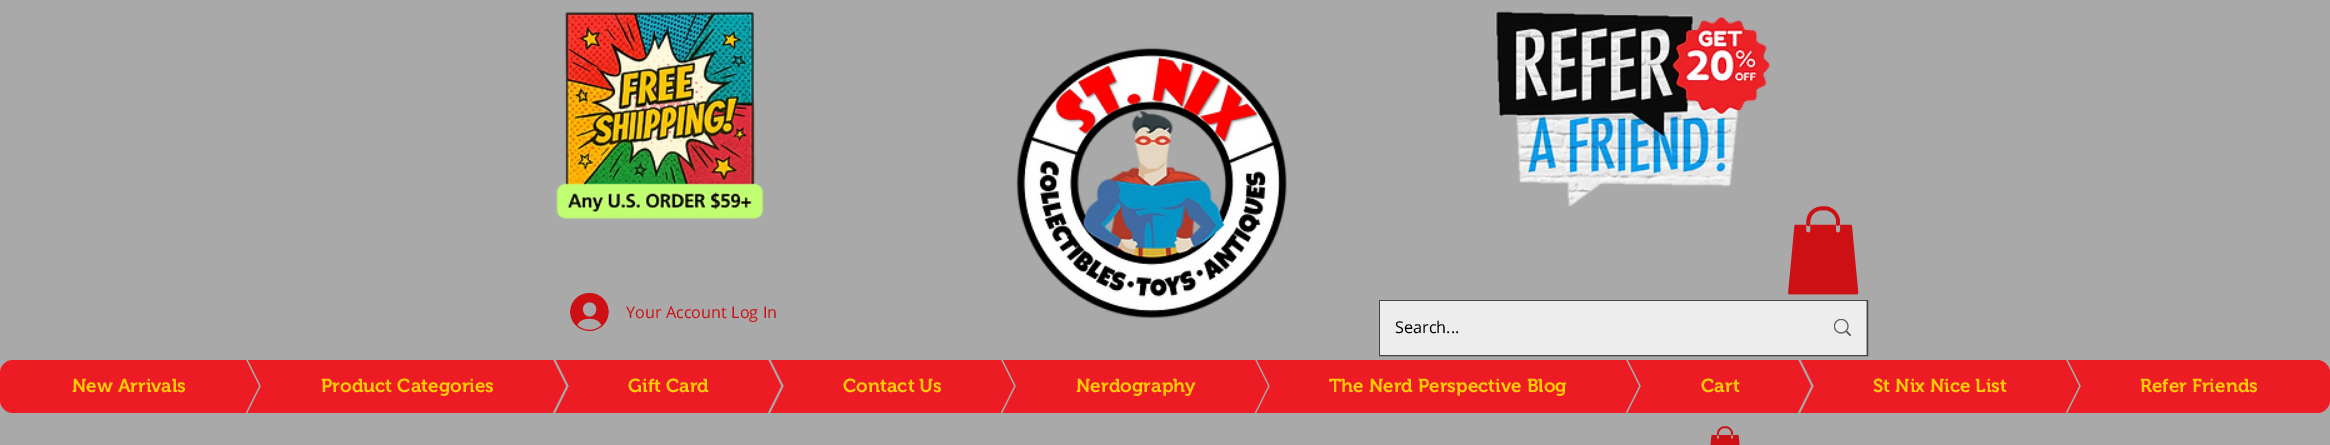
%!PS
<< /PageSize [2330 445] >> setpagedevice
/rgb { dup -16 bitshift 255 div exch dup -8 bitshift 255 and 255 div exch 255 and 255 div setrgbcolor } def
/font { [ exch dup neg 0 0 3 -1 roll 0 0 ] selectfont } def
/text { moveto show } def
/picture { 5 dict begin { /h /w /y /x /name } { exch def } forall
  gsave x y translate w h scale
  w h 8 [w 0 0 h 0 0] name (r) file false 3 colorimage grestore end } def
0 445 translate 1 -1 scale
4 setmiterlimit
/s1 { /OpenSans-Regular 16.25 font 16#CC1013 rgb } def
/s2 { /OpenSans-Regular 16.25 font 16#000000 rgb } def
/s3 { /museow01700-SemiBold 18.75 font 16#FFCB05 rgb } def
16#A9A9A9 rgb
0 0 2330 445 rectfill
(pic1.raw) 556 11 208 208 picture
(pic2.raw) 1016 47 271 272 picture
(pic3.raw) 1495 11 276 195 picture
(pic4.raw) 1788 206 71 89 picture
(pic5.raw) 570 293 39 38 picture
s1
(Your Account Log In) 626 318 text
16#444444 rgb
1379.5 300.5 488 55 rectstroke
16#EDEDED rgb
1380 301 486 54 rectfill
s2
(Search...) 1395 333 text
(pic6.raw) 1834 319 17 17 picture
16#ED1C24 rgb
13 360 moveto 171 360 lineto 171 413 lineto 13 413 lineto 6 413 0 407 0 400 curveto 0 373 lineto 0 366 6 360 13 360 curveto closepath fill
gsave
171 360 88 53 rectclip
259 386 moveto 171 386 lineto 171 211 lineto closepath fill
171 386 moveto 259 386 lineto 171 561 lineto closepath fill
grestore
s3
(New Arrivals) 72 392 text
gsave
174 360 87 53 rectclip
16#ED1C24 rgb
174 211 moveto 261 211 lineto 261 386 lineto closepath 261 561 moveto 174 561 lineto 261 386 lineto closepath fill
grestore
16#ED1C24 rgb
261 360 218 53 rectfill
gsave
479 360 87 53 rectclip
566 386 moveto 479 386 lineto 479 211 lineto closepath fill
479 386 moveto 566 386 lineto 479 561 lineto closepath fill
grestore
s3
(Product Categories) 321 392 text
gsave
481 360 88 53 rectclip
16#ED1C24 rgb
481 211 moveto 569 211 lineto 569 386 lineto closepath 569 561 moveto 481 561 lineto 569 386 lineto closepath fill
grestore
16#ED1C24 rgb
569 360 125 53 rectfill
gsave
694 360 87 53 rectclip
781 386 moveto 694 386 lineto 694 211 lineto closepath fill
694 386 moveto 781 386 lineto 694 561 lineto closepath fill
grestore
s3
(Gift Card) 628 392 text
gsave
696 360 88 53 rectclip
16#ED1C24 rgb
696 211 moveto 784 211 lineto 784 386 lineto closepath 784 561 moveto 696 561 lineto 784 386 lineto closepath fill
grestore
16#ED1C24 rgb
784 360 142 53 rectfill
gsave
926 360 88 53 rectclip
1014 386 moveto 926 386 lineto 926 211 lineto closepath fill
926 386 moveto 1014 386 lineto 926 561 lineto closepath fill
grestore
s3
(Contact Us) 843 392 text
gsave
929 360 87 53 rectclip
16#ED1C24 rgb
929 211 moveto 1016 211 lineto 1016 386 lineto closepath 1016 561 moveto 929 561 lineto 1016 386 lineto closepath fill
grestore
16#ED1C24 rgb
1016 360 164 53 rectfill
gsave
1180 360 88 53 rectclip
1268 386 moveto 1180 386 lineto 1180 211 lineto closepath fill
1180 386 moveto 1268 386 lineto 1180 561 lineto closepath fill
grestore
s3
(Nerdography) 1076 392 text
gsave
1183 360 87 53 rectclip
16#ED1C24 rgb
1182 211 moveto 1270 211 lineto 1270 386 lineto closepath 1270 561 moveto 1182 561 lineto 1270 386 lineto closepath fill
grestore
16#ED1C24 rgb
1270 360 281 53 rectfill
gsave
1551 360 88 53 rectclip
1639 386 moveto 1551 386 lineto 1551 211 lineto closepath fill
1551 386 moveto 1639 386 lineto 1551 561 lineto closepath fill
grestore
s3
(The Nerd Perspective Blog) 1329 392 text
gsave
1554 360 87 53 rectclip
16#ED1C24 rgb
1554 211 moveto 1641 211 lineto 1641 386 lineto closepath 1641 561 moveto 1554 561 lineto 1641 386 lineto closepath fill
grestore
16#ED1C24 rgb
1641 360 83 53 rectfill
gsave
1724 360 87 53 rectclip
1811 386 moveto 1724 386 lineto 1724 211 lineto closepath fill
1724 386 moveto 1811 386 lineto 1724 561 lineto closepath fill
grestore
s3
(Cart) 1701 392 text
gsave
1726 360 88 53 rectclip
16#ED1C24 rgb
1726 211 moveto 1814 211 lineto 1814 386 lineto closepath 1814 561 moveto 1726 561 lineto 1814 386 lineto closepath fill
grestore
16#ED1C24 rgb
1814 360 177 53 rectfill
gsave
1991 360 88 53 rectclip
2079 386 moveto 1991 386 lineto 1991 211 lineto closepath fill
1991 386 moveto 2079 386 lineto 1991 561 lineto closepath fill
grestore
s3
(St Nix Nice List) 1873 392 text
gsave
1994 360 87 53 rectclip
16#ED1C24 rgb
1994 211 moveto 2081 211 lineto 2081 386 lineto closepath 2081 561 moveto 1994 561 lineto 2081 386 lineto closepath fill
grestore
16#ED1C24 rgb
2081 360 162 53 rectfill
2243 360 moveto 2317 360 lineto 2324 360 2330 366 2330 373 curveto 2330 400 lineto 2330 407 2324 413 2317 413 curveto 2243 413 lineto closepath fill
s3
(Refer Friends) 2140 392 text
(pic7.raw) 1710 426 30 19 picture
showpage
